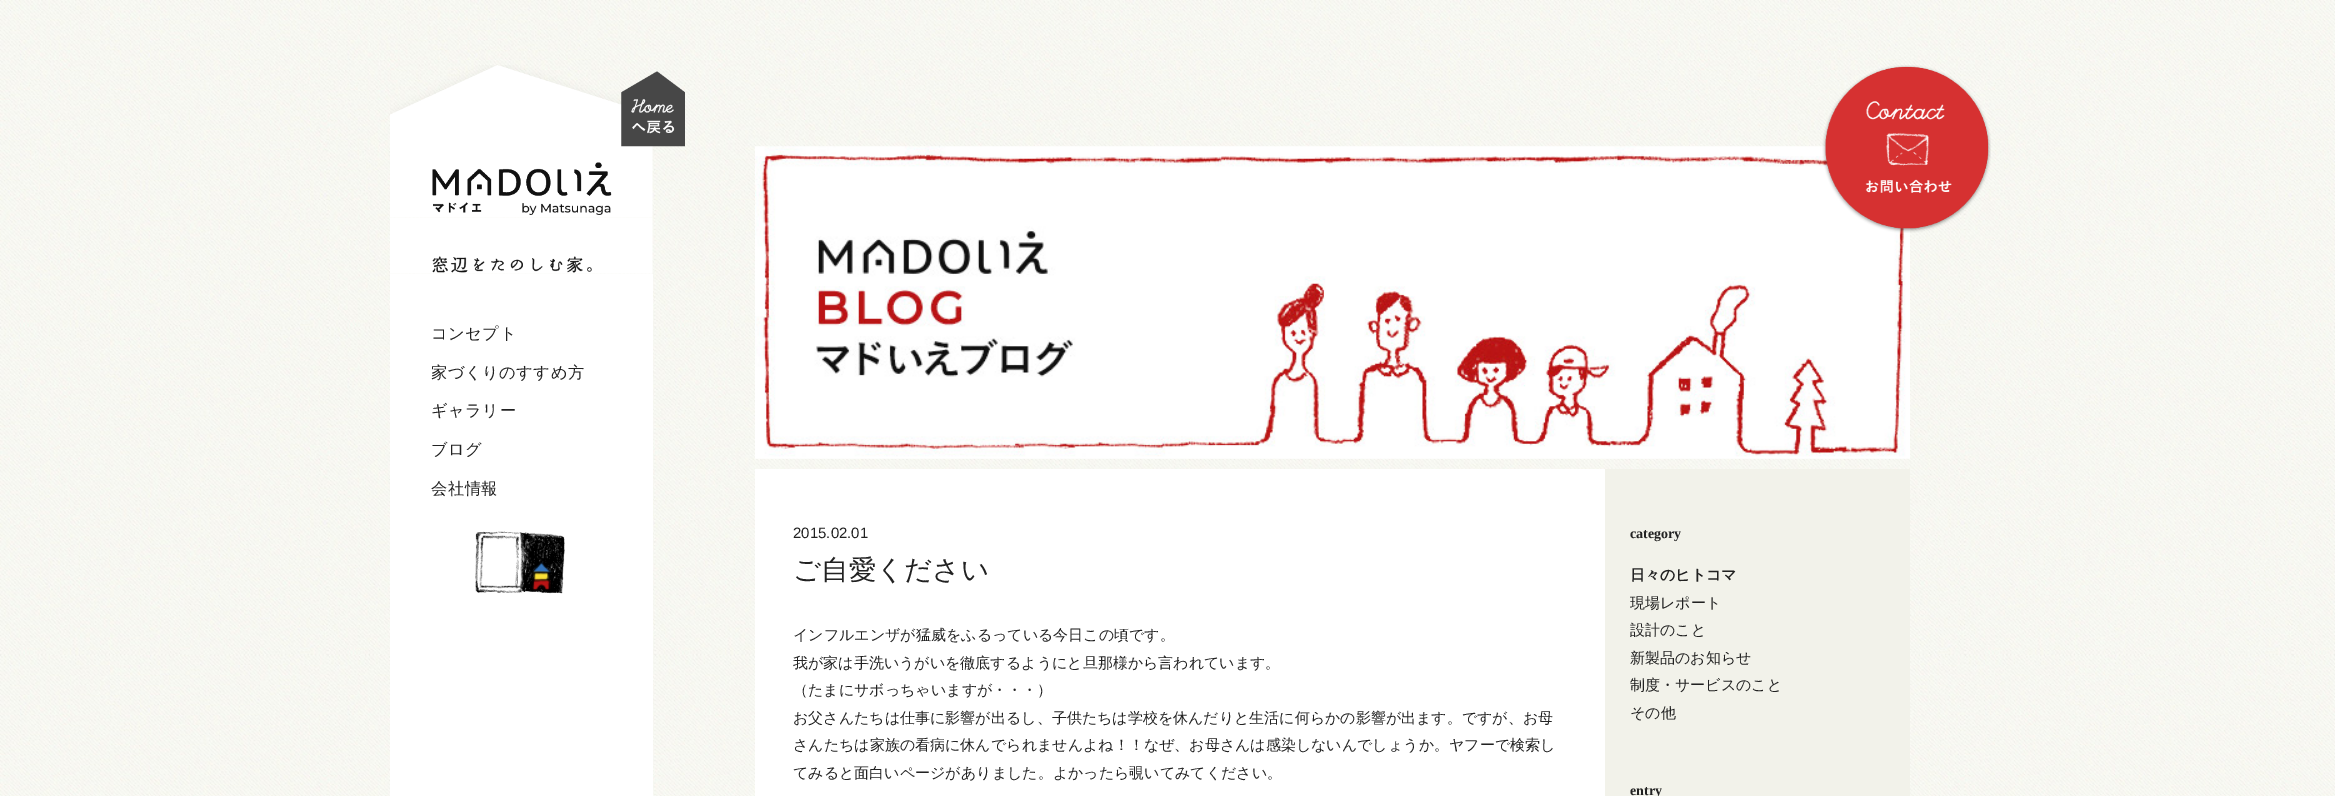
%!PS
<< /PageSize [2335 796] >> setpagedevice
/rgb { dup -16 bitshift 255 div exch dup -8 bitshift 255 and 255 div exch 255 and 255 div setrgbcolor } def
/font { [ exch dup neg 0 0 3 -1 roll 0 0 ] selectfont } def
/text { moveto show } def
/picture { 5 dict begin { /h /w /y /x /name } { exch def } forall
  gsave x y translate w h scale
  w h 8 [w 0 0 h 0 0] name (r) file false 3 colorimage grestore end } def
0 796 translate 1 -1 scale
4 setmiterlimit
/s1 { /LiberationSans-Regular 15 font 16#222222 rgb } def
/s2 { /WenQuanYiZenHei-Medium 27.5 font 16#222222 rgb } def
/s3 { /WenQuanYiZenHei-Medium 15 font 16#222222 rgb } def
/s4 { /LiberationSerif-Bold 14 font 16#222222 rgb } def
/s5 { /WenQuanYiZenHei-Bold 15 font 16#222222 rgb } def
16#FFFFFF rgb
0 0 2335 796 rectfill
(pic1.raw) 0 0 2335 796 picture
(pic7.raw) 755 146 1155 313 picture
(pic2.raw) 1822 65 169 168 picture
(pic3.raw) 390 65 263 153 picture
(pic4.raw) 621 71 64 76 picture
(pic5.raw) 390 217 263 57 picture
390 274 263 522 rectfill
/WenQuanYiZenHei-Medium 16.25 font
16#222222 rgb
431 339 moveto 0.5 0 (コンセプト) ashow
431 378 moveto 0.5 0 (家づくりのすすめ方) ashow
431 416 moveto 0.5 0 (ギャラリー) ashow
431 455 moveto 0.5 0 (ブログ) ashow
431 494 moveto 0.5 0 (会社情報) ashow
(pic6.raw) 475 531 90 63 picture
16#FFFFFF rgb
755 469 850 327 rectfill
s1
(2015.02.01) 793 538 text
s2
(ご自愛ください) 793 579 text
s3
(インフルエンザが猛威をふるっている今日この頃です。) 793 640 text
(我が家は手洗いうがいを徹底するようにと旦那様から言われています。) 793 668 text
(（たまにサボっちゃいますが・・・）) 793 695 text
(お父さんたちは仕事に影響が出るし、子供たちは学校を休んだりと生活に何らかの影響が出ます。ですが、お母) 793 723 text
(さんたちは家族の看病に休んでられませんよね！！なぜ、お母さんは感染しないんでしょうか。ヤフーで検索し) 793 750 text
(てみると面白いページがありました。よかったら覗いてみてください。) 793 778 text
16#F2F2EA rgb
1605 469 305 327 rectfill
s4
(category) 1630 538 text
s5
(日々のヒトコマ) 1630 580 text
s3
(現場レポート) 1630 608 text
(設計のこと) 1630 635 text
(新製品のお知らせ) 1630 663 text
(制度・サービスのこと) 1630 690 text
(その他) 1630 718 text
s4
(entry) 1630 795 text
showpage
